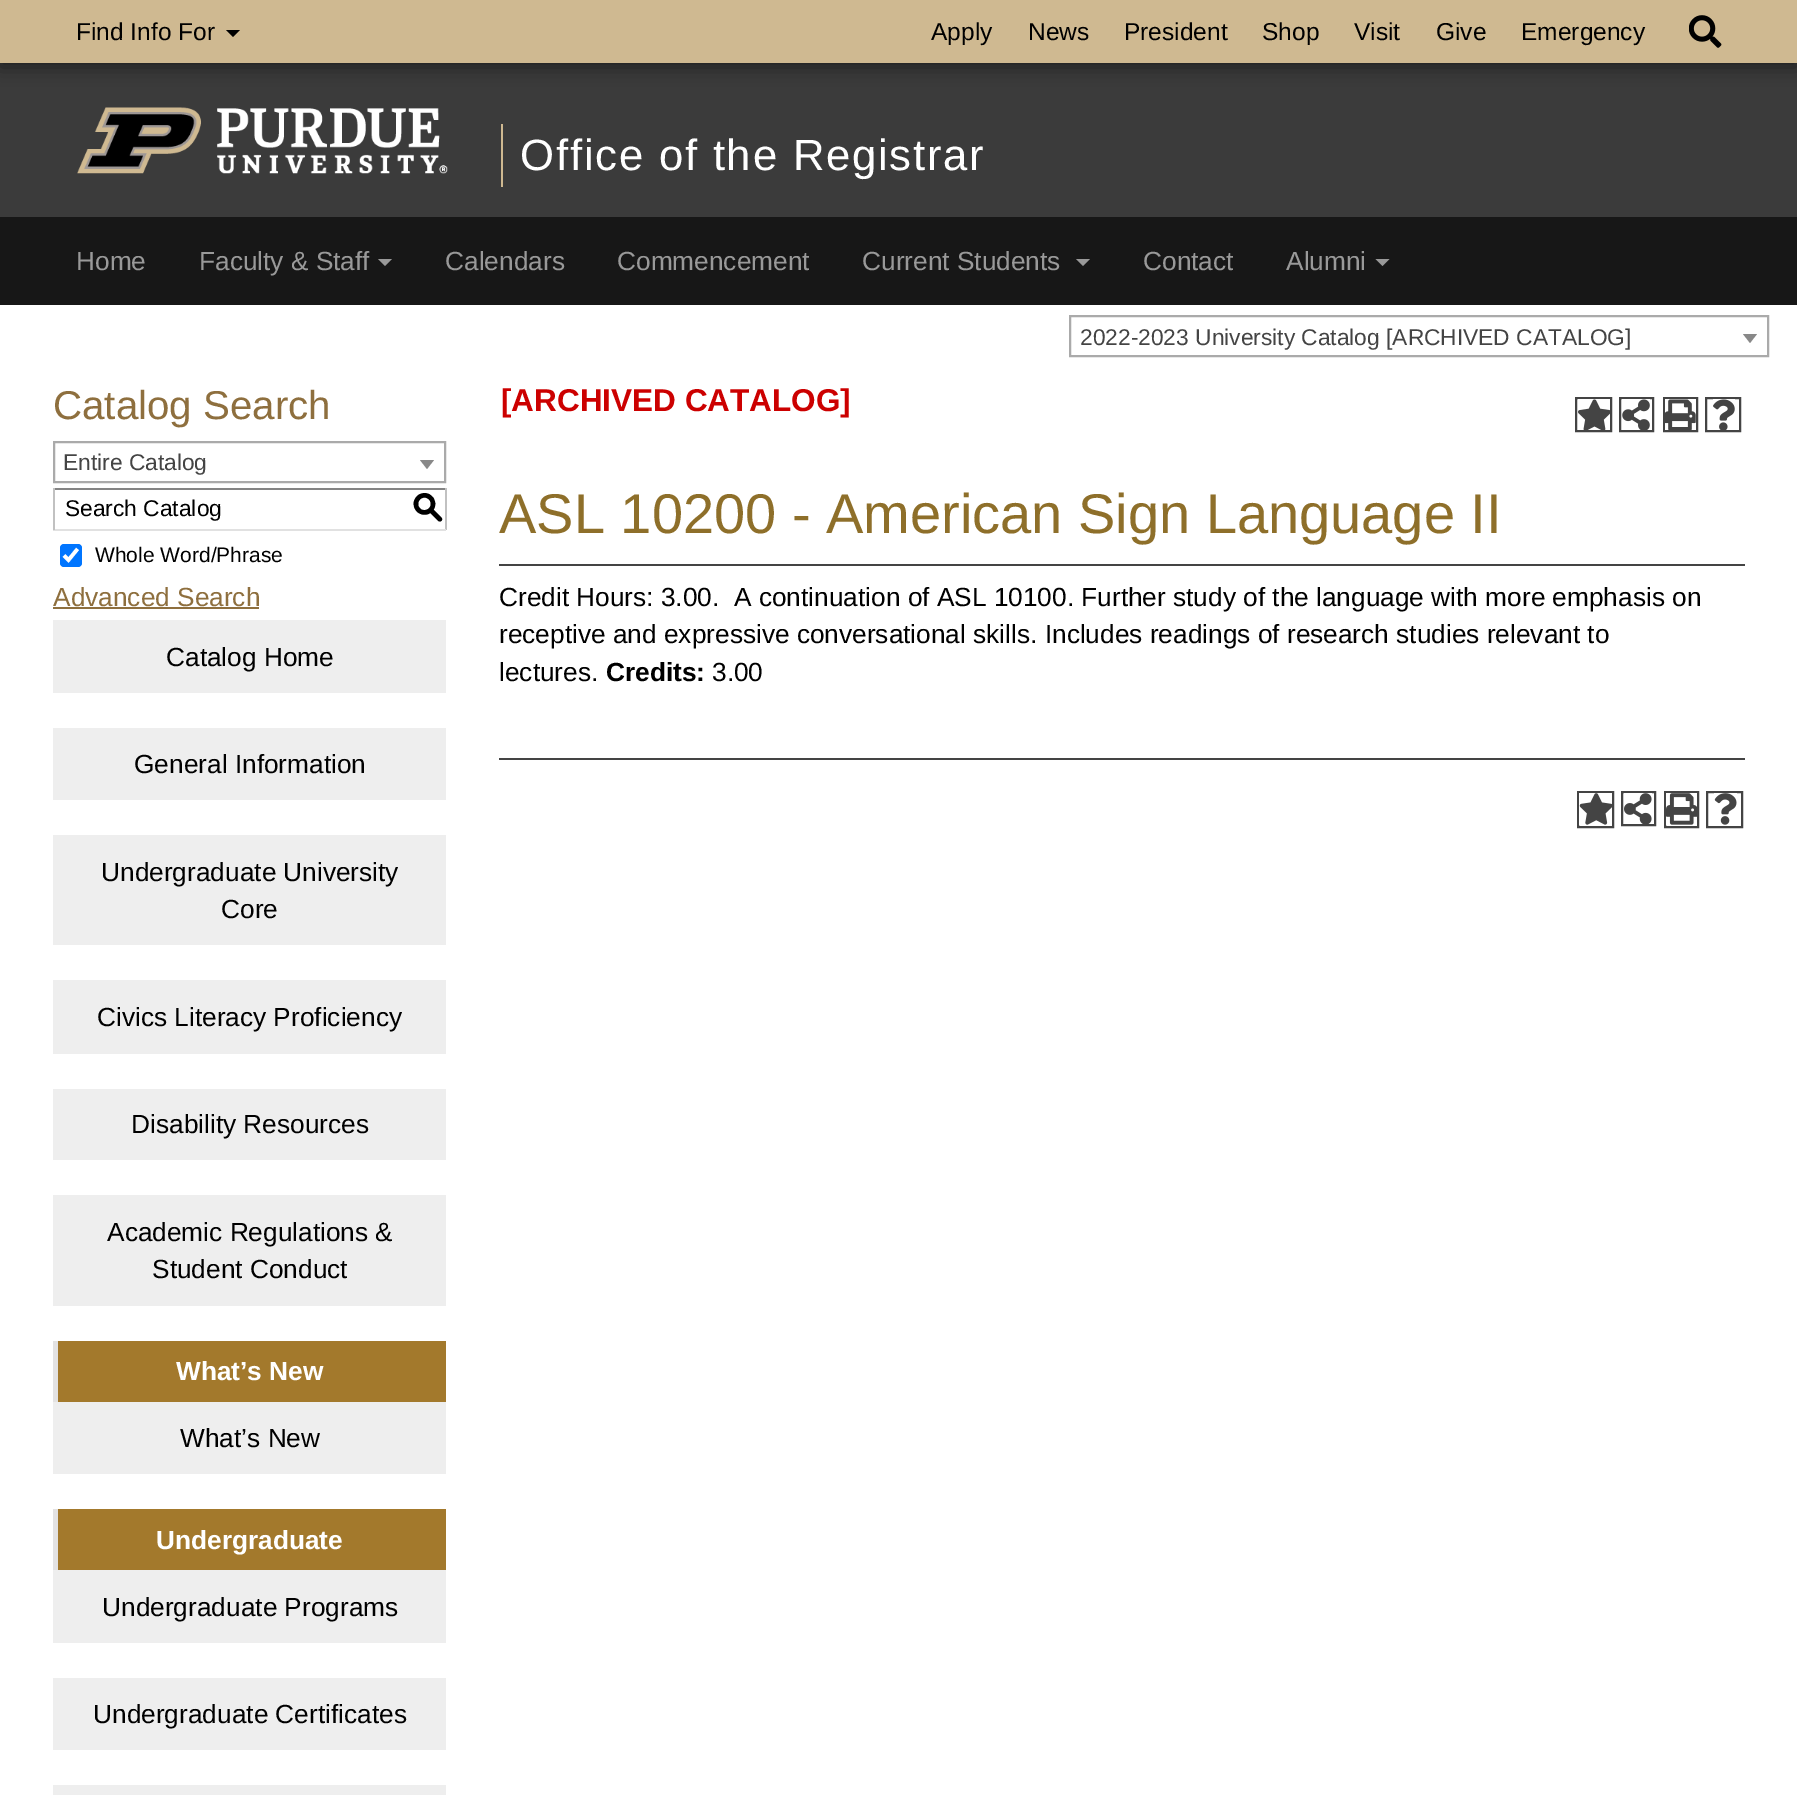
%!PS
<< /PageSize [1797 1795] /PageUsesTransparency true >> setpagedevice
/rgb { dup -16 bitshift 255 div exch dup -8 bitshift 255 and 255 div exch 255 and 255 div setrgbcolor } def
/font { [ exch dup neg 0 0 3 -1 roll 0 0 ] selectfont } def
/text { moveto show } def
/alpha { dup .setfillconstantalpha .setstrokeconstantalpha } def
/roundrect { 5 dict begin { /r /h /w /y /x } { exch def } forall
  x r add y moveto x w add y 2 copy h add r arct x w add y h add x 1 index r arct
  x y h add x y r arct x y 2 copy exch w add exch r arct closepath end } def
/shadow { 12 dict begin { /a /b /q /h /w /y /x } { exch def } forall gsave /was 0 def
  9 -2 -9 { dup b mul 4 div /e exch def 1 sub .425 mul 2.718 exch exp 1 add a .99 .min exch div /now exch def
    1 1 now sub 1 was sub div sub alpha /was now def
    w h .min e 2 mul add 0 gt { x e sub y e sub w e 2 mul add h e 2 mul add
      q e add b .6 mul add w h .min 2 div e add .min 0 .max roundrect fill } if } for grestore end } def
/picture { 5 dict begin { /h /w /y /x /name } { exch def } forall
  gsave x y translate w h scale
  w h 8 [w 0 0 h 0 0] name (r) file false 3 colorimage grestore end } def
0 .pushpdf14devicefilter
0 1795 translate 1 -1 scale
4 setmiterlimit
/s1 { /LiberationSans-Regular 24.5 font 16#000000 rgb } def
/s2 { /LiberationSans-Regular 26.25 font 16#999999 rgb } def
/s3 { /LiberationSans-Regular 22.75 font 16#444444 rgb } def
/s4 { /LiberationSans-Regular 40.25 font 16#8E6F3E rgb } def
/s5 { /LiberationSans-Regular 22.75 font 16#000000 rgb } def
/s6 { /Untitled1-Medium 31.5 font 16#000000 rgb } def
/s7 { /LiberationSans-Regular 21 font 16#000000 rgb } def
/s8 { /LiberationSans-Regular 26.25 font 16#8E6F3E rgb } def
/s9 { /LiberationSans-Regular 26.25 font 16#000000 rgb } def
/s10 { /LiberationSans-Bold 26.25 font 16#FFFFFF rgb } def
/s11 { /LiberationSans-Bold 31.5 font 16#CC0000 rgb } def
/s12 { /LiberationSans-Regular 56 font 16#8E6F2A rgb } def
/s13 { /LiberationSans-Bold 26.25 font 16#000000 rgb } def
16#FFFFFF rgb
0 0 1797 1795 rectfill
16#3B3B3B rgb
0 63 1797 154 rectfill
16#1E1E1E rgb
0 4 1797 63 0 9 1 shadow
16#CFB991 rgb
0 0 1797 63 rectfill
s1
(Find Info For) 76 40 text
226 30 moveto 240 30 lineto 233 37 lineto closepath fill
(Apply) 931 40 text
(News) 1028 40 text
(President) 1124 40 text
(Shop) 1262 40 text
(Visit) 1354 40 text
(Give) 1436 40 text
(Emergency) 1521 40 text
(pic1.raw) 1689 15 33 33 picture
(pic2.raw) 77 107 371 67 picture
16#CFB991 rgb
501 124 2 63 rectfill
/LiberationSans-Regular 43.75 font
16#FFFFFF rgb
520 170 moveto 1.75 0 (Office of the Registrar) ashow
16#171717 rgb
0 217 1797 88 rectfill
s2
(Home) 76 270 text
(Faculty & Staff) 199 270 text
378 259 moveto 392 259 lineto 385 266 lineto closepath fill
(Calendars) 445 270 text
(Commencement) 617 270 text
(Current Students) 862 270 text
1076 259 moveto 1090 259 lineto 1083 266 lineto closepath fill
(Contact) 1143 270 text
(Alumni) 1286 270 text
1375.5 259 moveto 1389.5 259 lineto 1382.5 266 lineto closepath fill
16#AAAAAA rgb
2 setlinewidth
1070 316 698 40 rectstroke
s3
(2022-2023 University Catalog [ARCHIVED CATALOG]) 1080 345 text
16#888888 rgb
1743 334 moveto 1757 334 lineto 1750 343 lineto closepath fill
s4
(Catalog Search) 53 419 text
16#AAAAAA rgb
54 442 391 40 rectstroke
s3
(Entire Catalog) 63 470 text
16#888888 rgb
420 460 moveto 434 460 lineto 427 469 lineto closepath fill
16#848484 rgb
53 488 393 2 rectfill
16#C1C1C1 rgb
445 488 2 42 rectfill
16#E1E1E1 rgb
53 529 393 2 rectfill
16#C1C1C1 rgb
53 488 2 42 rectfill
s5
(Search Catalog) 65 516 text
s6
(S) 412 517 text
16#0075FF rgb
60 544 22 23 4 roundrect fill
16#FFFFFF rgb
3.6 setlinewidth
64 555.5 moveto 68.5 560 lineto 77.5 549 lineto stroke
s7
(Whole Word/Phrase) 95 562 text
s8
(Advanced Search) 53 606 text
53 607 206 2 rectfill
16#EEEEEE rgb
53 620 393 73 rectfill
s9
(Catalog Home) 166 666 text
16#EEEEEE rgb
53 728 393 72 rectfill
s9
(General Information) 134 773 text
16#EEEEEE rgb
53 835 393 110 rectfill
s9
(Undergraduate University) 101 881 text
(Core) 221 918 text
16#EEEEEE rgb
53 980 393 74 rectfill
s9
(Civics Literacy Proficiency) 97 1026 text
16#EEEEEE rgb
53 1089 393 71 rectfill
s9
(Disability Resources) 131 1133 text
16#EEEEEE rgb
53 1195 393 111 rectfill
s9
(Academic Regulations &) 107 1241 text
(Student Conduct) 152 1278 text
16#A3792C rgb
58 1341 388 61 rectfill
16#E3E2E2 rgb
53 1341 5 61 rectfill
s10
(What’s New) 176 1380 text
16#EEEEEE rgb
53 1402 393 72 rectfill
s9
(What’s New) 180 1447 text
16#A3792C rgb
58 1509 388 61 rectfill
16#E3E2E2 rgb
53 1509 5 61 rectfill
s10
(Undergraduate) 156 1549 text
16#EEEEEE rgb
53 1570 393 73 rectfill
s9
(Undergraduate Programs) 102 1616 text
16#EEEEEE rgb
53 1678 393 72 rectfill
s9
(Undergraduate Certificates) 93 1723 text
16#EEEEEE rgb
53 1785 393 10 rectfill
s11
([ARCHIVED CATALOG]) 501 411 text
16#444444 rgb
2 setlinewidth
1576 398 35 33 rectstroke
(pic3.raw) 1578 399 32 31 picture
1620 398 33 33 rectstroke
(pic4.raw) 1622 399 28 31 picture
1664 398 33 33 rectstroke
(pic5.raw) 1665 399 31 31 picture
1706 398 34 33 rectstroke
(pic6.raw) 1713 399 22 31 picture
s12
(ASL 10200 - American Sign Language II) 499 533 text
16#444444 rgb
499 564 1246 2 rectfill
s9
(Credit Hours: 3.00.  A continuation of ASL 10100. Further study of the language with more emphasis on) 499 606 text
(receptive and expressive conversational skills. Includes readings of research studies relevant to) 499 643 text
(lectures.) 499 681 text
s13
(Credits:) 606 681 text
s9
(3.00) 712 681 text
16#444444 rgb
499 758 1246 2 rectfill
1578 792 35 35 rectstroke
(pic7.raw) 1579 793 33 32 picture
1622 792 33 33 rectstroke
(pic8.raw) 1624 793 28 31 picture
1665 792 33 35 rectstroke
(pic9.raw) 1666 793 31 32 picture
1707 792 35 35 rectstroke
(pic10.raw) 1714 793 23 32 picture
.poppdf14devicefilter showpage
